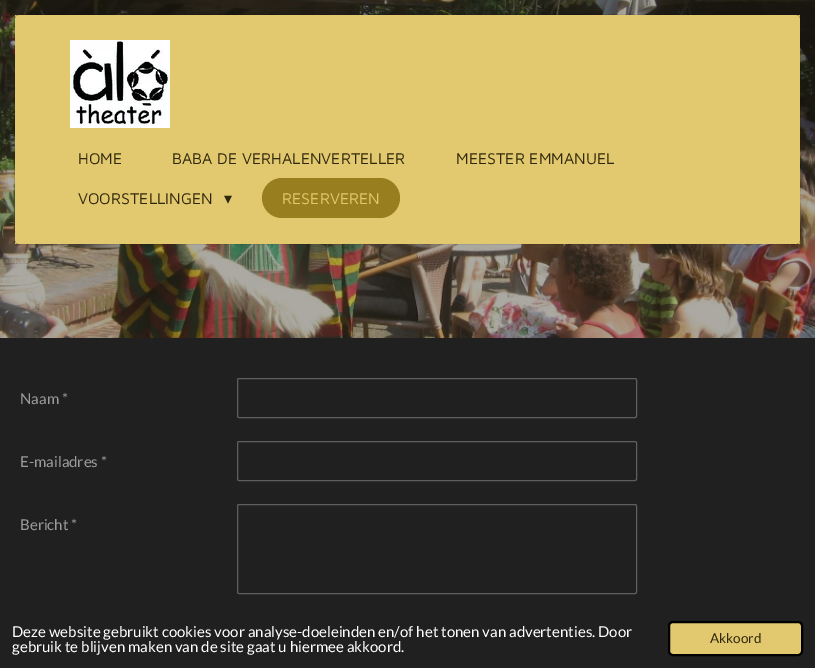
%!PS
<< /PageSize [815 668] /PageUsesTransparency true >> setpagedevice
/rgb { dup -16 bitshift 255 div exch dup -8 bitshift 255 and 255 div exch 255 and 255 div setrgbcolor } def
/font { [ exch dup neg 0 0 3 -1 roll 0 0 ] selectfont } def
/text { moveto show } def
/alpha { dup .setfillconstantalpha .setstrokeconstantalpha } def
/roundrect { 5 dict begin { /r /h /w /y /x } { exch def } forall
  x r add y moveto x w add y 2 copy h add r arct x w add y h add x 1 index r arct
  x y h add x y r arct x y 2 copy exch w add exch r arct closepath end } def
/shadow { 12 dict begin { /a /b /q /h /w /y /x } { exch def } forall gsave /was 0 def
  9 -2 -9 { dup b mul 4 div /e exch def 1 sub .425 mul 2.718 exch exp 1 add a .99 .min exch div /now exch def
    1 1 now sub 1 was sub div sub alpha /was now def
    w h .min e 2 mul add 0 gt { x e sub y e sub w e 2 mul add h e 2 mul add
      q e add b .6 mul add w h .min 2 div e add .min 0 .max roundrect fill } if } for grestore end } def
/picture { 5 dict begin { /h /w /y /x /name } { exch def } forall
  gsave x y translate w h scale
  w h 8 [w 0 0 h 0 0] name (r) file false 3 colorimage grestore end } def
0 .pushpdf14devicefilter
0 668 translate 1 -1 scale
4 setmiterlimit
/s1 { /MavenPro-Regular 16 font 16#2F2709 rgb } def
/s2 { /DejaVuSans-Regular 16 font 16#2F2709 rgb } def
/s3 { /MavenPro-Regular 16 font 16#E2C86F rgb } def
/s4 { /Lato-Regular 15 font 16#9B9B9B rgb } def
/s5 { /Lato-Regular 15 font 16#FFFFFF rgb } def
/s6 { /Lato-Regular 13.5 font 16#2F2709 rgb } def
16#202020 rgb
0 0 815 668 rectfill
(pic1.raw) 0 0 815 338 picture
16#E2C86F rgb
15 15 785 229 rectfill
gsave
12 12 moveto 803 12 lineto 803 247 lineto 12 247 lineto closepath 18 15 moveto 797 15 lineto 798.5 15 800 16.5 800 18 curveto 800 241 lineto 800 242.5 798.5 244 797 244 curveto 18 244 lineto 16.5 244 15 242.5 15 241 curveto 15 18 lineto 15 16.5 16.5 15 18 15 curveto closepath eoclip newpath
16#000000 rgb
15 15 785 229 3 0.5 0.3 shadow
grestore
(pic2.raw) 70 40 100 88 picture
s1
(HOME) 78 164 text
(BABA DE VERHALENVERTELLER) 172 164 text
(MEESTER EMMANUEL) 456 164 text
(VOORSTELLINGEN) 78 204 text
s2
(▾) 224 204 text
16#997E1F rgb
262 178 138 40 20 roundrect fill
s3
(RESERVEREN) 282 204 text
s4
(Naam *) 20 404 text
16#5E5E5E rgb
237.5 378.5 399 39 1.5 roundrect stroke
s4
(E-mailadres *) 20 467 text
16#5E5E5E rgb
237.5 441.5 399 39 1.5 roundrect stroke
s4
(Bericht *) 20 530 text
16#5E5E5E rgb
237.5 504.5 399 89 1.5 roundrect stroke
s5
(Deze website gebruikt cookies voor analyse-doeleinden en/of het tonen van advertenties. Door) 12 637 text
(gebruik te blijven maken van de site gaat u hiermee akkoord.) 12 652 text
16#E2C86F rgb
669 622 133 33 4 roundrect gsave fill grestore
16#000000 rgb
2 setlinewidth
stroke
s6
(Akkoord) 710 643 text
.poppdf14devicefilter showpage
